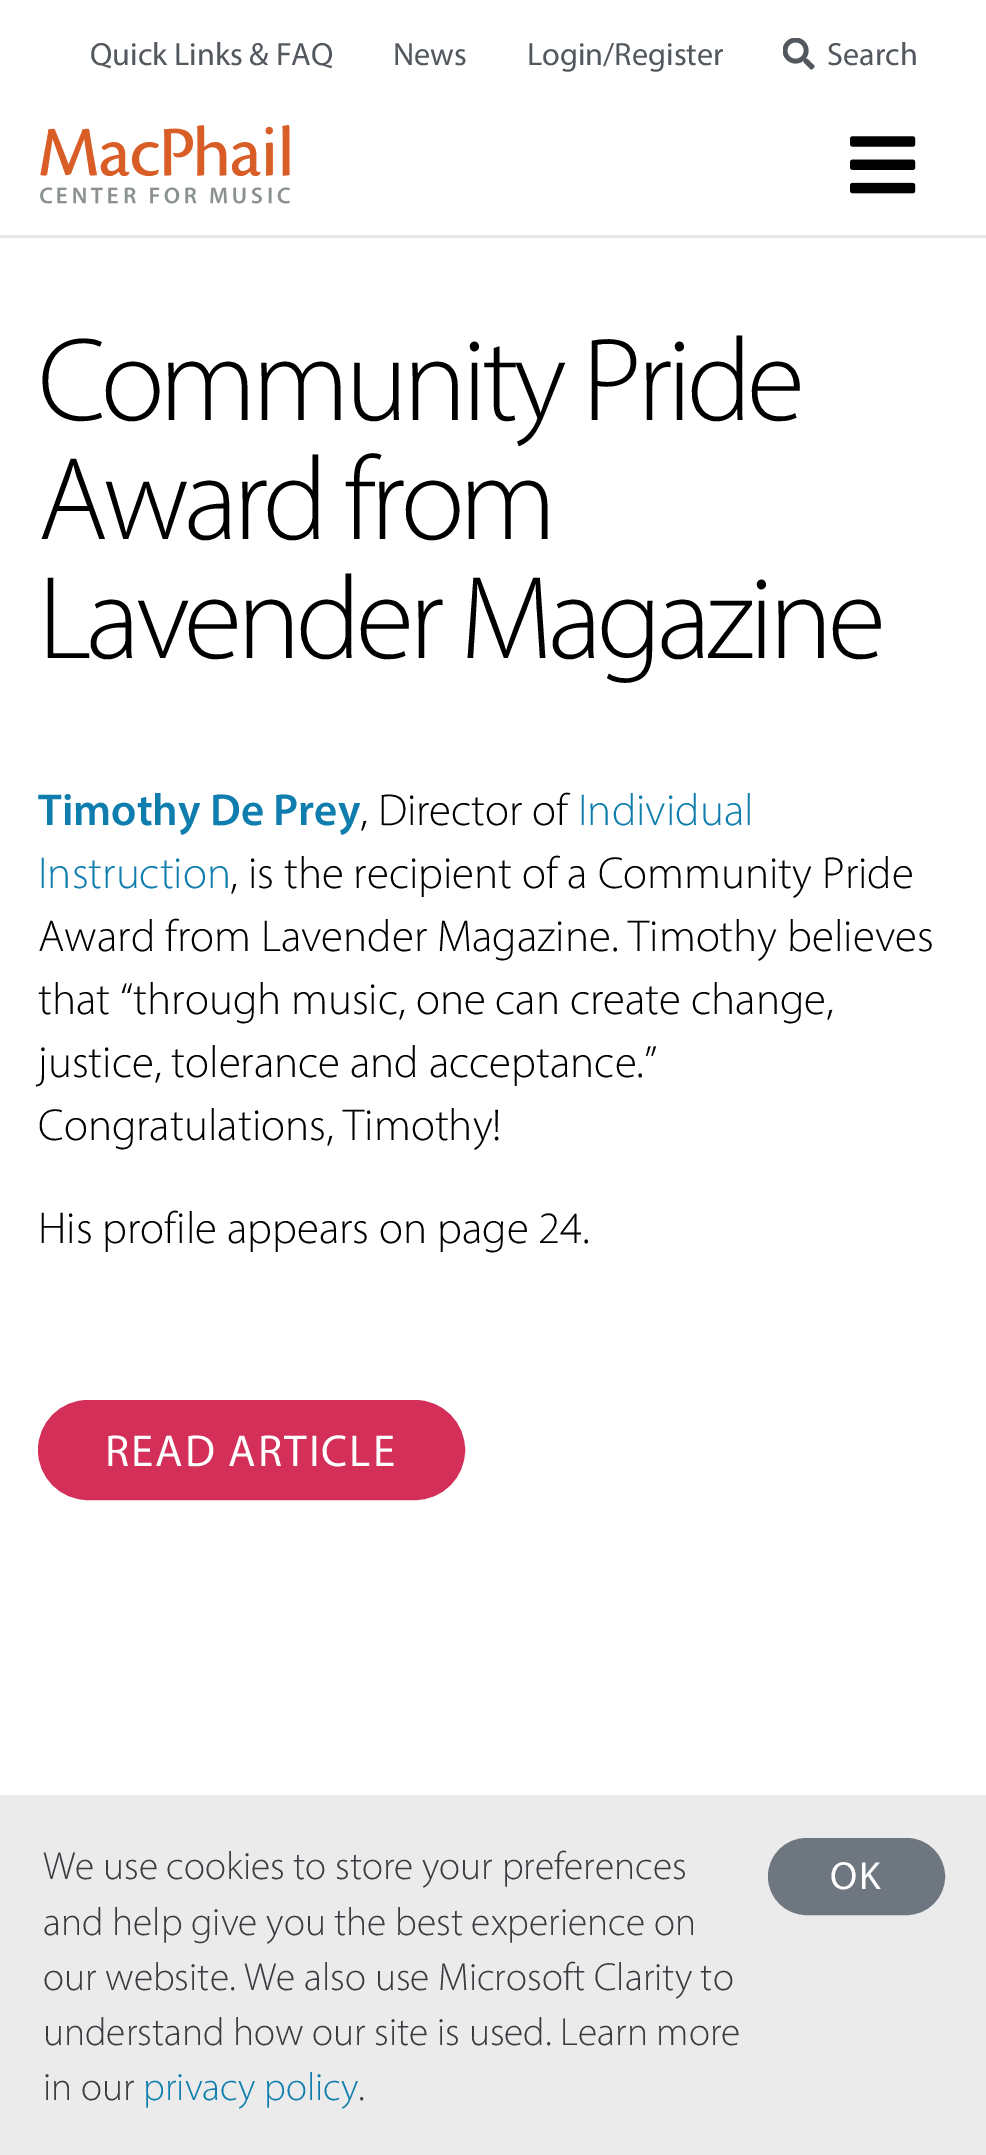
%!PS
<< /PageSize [986 2155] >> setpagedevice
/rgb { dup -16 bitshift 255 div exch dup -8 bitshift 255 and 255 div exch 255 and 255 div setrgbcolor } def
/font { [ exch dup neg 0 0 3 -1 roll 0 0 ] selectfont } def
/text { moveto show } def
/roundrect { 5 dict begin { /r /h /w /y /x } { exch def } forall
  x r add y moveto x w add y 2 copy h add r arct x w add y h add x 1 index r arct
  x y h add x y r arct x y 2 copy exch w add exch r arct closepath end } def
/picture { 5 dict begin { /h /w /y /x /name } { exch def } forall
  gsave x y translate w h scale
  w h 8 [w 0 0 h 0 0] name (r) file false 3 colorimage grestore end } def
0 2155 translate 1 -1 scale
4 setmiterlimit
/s1 { /Myriad-Regular 32.25 font 16#52585E rgb } def
/s2 { /Myriad-SemiBold 45 font 16#0F7EAE rgb } def
/s3 { /Myriad-Light 45 font 16#000000 rgb } def
/s4 { /Myriad-Light 45 font 16#0F7EAE rgb } def
/s5 { /Myriad-Light 39.4 font 16#383C40 rgb } def
/s6 { /Myriad-Light 39.4 font 16#0F7EAE rgb } def
16#FFFFFF rgb
0 0 986 2155 rectfill
16#E6E6E6 rgb
0 235 986 3 rectfill
s1
(Quick Links & FAQ) 90 65 text
(News) 393 65 text
(Login/Register) 527 65 text
(pic1.raw) 783 38 32 32 picture
(Search) 827 65 text
(pic2.raw) 40 125 250 79 picture
(pic3.raw) 850 136 66 58 picture
/Myriad-Light 119.25 font
16#000000 rgb
38 420 moveto -5 0 (Community Pride) ashow
38 539 moveto -5 0 (Award from) ashow
38 658 moveto -5 0 (Lavender Magazine) ashow
s2
(Timothy De Prey) 38 825 text
s3
(, Director of) 360 825 text
s4
(Individual) 578 825 text
(Instruction) 38 888 text
s3
(, is the recipient of a Community Pride) 230 888 text
(Award from Lavender Magazine. Timothy believes) 38 951 text
(that “through music, one can create change,) 38 1014 text
(justice, tolerance and acceptance.”) 38 1077 text
(Congratulations, Timothy!) 38 1140 text
(His profile appears on page 24.) 38 1243 text
16#D32F59 rgb
39.5 1401.5 424 97 48.5 roundrect gsave fill grestore
3 setlinewidth
stroke
/Myriad-Regular 45 font
16#FFFFFF rgb
105 1466 moveto 2 0 (READ ARTICLE) ashow
16#EBEBEB rgb
0 1795 986 360 rectfill
s5
(We use cookies to store your preferences) 43 1879 text
(and help give you the best experience on) 43 1935 text
(our website. We also use Microsoft Clarity to) 43 1990 text
(understand how our site is used. Learn more) 43 2045 text
(in our) 43 2100 text
s6
(privacy policy) 143 2100 text
s5
(.) 358 2100 text
16#6E777F rgb
769.5 1839.5 174 74 37 roundrect gsave fill grestore
stroke
/Myriad-Regular 39.4 font
16#FFFFFF rgb
830 1889 moveto 2 0 (OK) ashow
showpage
